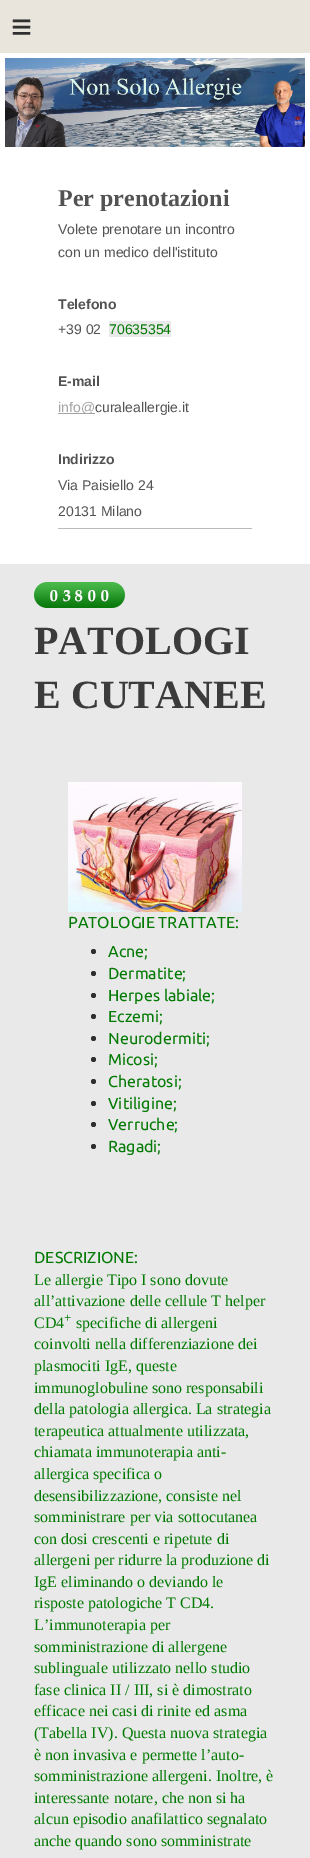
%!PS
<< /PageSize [310 1858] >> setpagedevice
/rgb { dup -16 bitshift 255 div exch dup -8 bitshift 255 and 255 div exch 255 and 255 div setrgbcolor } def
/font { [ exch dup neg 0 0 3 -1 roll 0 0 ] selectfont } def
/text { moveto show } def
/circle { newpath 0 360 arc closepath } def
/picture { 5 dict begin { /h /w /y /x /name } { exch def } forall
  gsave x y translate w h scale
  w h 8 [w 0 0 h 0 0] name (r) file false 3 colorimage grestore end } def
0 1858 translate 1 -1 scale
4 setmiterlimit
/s1 { /LiberationSerif-Bold 24 font 16#535353 rgb } def
/s2 { /LiberationSans-Regular 14 font 16#535353 rgb } def
/s3 { /LiberationSans-Bold 14 font 16#535353 rgb } def
/s4 { /LiberationSans-Regular 14 font 16#037A04 rgb } def
/s5 { /LiberationSans-Regular 14 font 16#A3A3A3 rgb } def
/s6 { /LiberationSerif-Bold 40 font 16#3B3B3B rgb } def
/s7 { /Ubuntu-Regular 16 font 16#037A04 rgb } def
/s8 { /LiberationSerif-Regular 16 font 16#037A04 rgb } def
/s9 { /LiberationSerif-Regular 13 font 16#037A04 rgb } def
16#FFFFFF rgb
0 0 310 1858 rectfill
16#E9E4DC rgb
0 0 310 53 rectfill
/LiberationSans-Regular 36 font
16#2F2F2F rgb
11 39 moveto 10 0 (≡) ashow
(pic1.raw) 5 58 300 89 picture
s1
(Per prenotazioni) 58 206 text
s2
(Volete prenotare un incontro) 58 234 text
(con un medico dell'istituto) 58 257 text
s3
(Telefono) 58 309 text
s2
(+39 02) 58 334 text
16#E9E9E9 rgb
109 321 62 16 rectfill
s4
(70635354) 109 334 text
s3
(E-mail) 58 386 text
16#A3A3A3 rgb
58 413 37 1 rectfill
s5
(info@) 58 412 text
s2
(curaleallergie.it) 95 412 text
s3
(Indirizzo) 58 464 text
s2
(Via Paisiello 24) 58 490 text
(20131 Milano) 58 516 text
16#BABABA rgb
58 528 194 1 rectfill
16#E9E9E9 rgb
0 564 310 1294 rectfill
(pic2.raw) 34 582 14 26 picture
(pic3.raw) 48 582 13 26 picture
(pic4.raw) 61 582 12 26 picture
(pic5.raw) 73 582 13 26 picture
(pic3.raw) 86 582 13 26 picture
(pic3.raw) 99 582 13 26 picture
(pic6.raw) 112 582 13 26 picture
s6
(PATOLOGI) 34 654 text
(E CUTANEE) 34 708 text
(pic7.raw) 68 782 174 130 picture
s7
(PATOLOGIE TRATTATE:) 68 928 text
16#2F2F2F rgb
93.5 951.5 2.5 circle fill
s7
(Acne;) 108 957 text
16#2F2F2F rgb
93.5 973.5 2.5 circle fill
s7
(Dermatite;) 108 979 text
16#2F2F2F rgb
93.5 995.5 2.5 circle fill
s7
(Herpes labiale;) 108 1001 text
16#2F2F2F rgb
93.5 1016.5 2.5 circle fill
s7
(Eczemi;) 108 1022 text
16#2F2F2F rgb
93.5 1038.5 2.5 circle fill
s7
(Neurodermiti;) 108 1044 text
16#2F2F2F rgb
93.5 1059.5 2.5 circle fill
s7
(Micosi;) 108 1065 text
16#2F2F2F rgb
93.5 1081.5 2.5 circle fill
s7
(Cheratosi;) 108 1087 text
16#2F2F2F rgb
93.5 1103.5 2.5 circle fill
s7
(Vitiligine;) 108 1109 text
16#2F2F2F rgb
93.5 1124.5 2.5 circle fill
s7
(Verruche;) 108 1130 text
16#2F2F2F rgb
93.5 1146.5 2.5 circle fill
s7
(Ragadi;) 108 1152 text
(DESCRIZIONE:) 34 1263 text
s8
(Le allergie Tipo I sono dovute) 34 1285 text
(all’attivazione delle cellule T helper) 34 1306 text
(CD4) 34 1328 text
s9
(+) 64 1322 text
s8
(specifiche di allergeni) 76 1328 text
(coinvolti nella differenziazione dei) 34 1349 text
(plasmociti IgE, queste) 34 1371 text
(immunoglobuline sono responsabili) 34 1393 text
(della patologia allergica. La strategia) 34 1414 text
(terapeutica attualmente utilizzata,) 34 1436 text
(chiamata immunoterapia anti-) 34 1457 text
(allergica specifica o) 34 1479 text
(desensibilizzazione, consiste nel) 34 1501 text
(somministrare per via sottocutanea) 34 1522 text
(con dosi crescenti e ripetute di) 34 1544 text
(allergeni per ridurre la produzione di) 34 1565 text
(IgE eliminando o deviando le) 34 1587 text
(risposte patologiche T CD4.) 34 1608 text
(L’immunoterapia per) 34 1630 text
(somministrazione di allergene) 34 1652 text
(sublinguale utilizzato nello studio) 34 1673 text
(fase clinica II / III, si è dimostrato) 34 1695 text
(efficace nei casi di rinite ed asma) 34 1716 text
(\(Tabella IV\). Questa nuova strategia) 34 1738 text
(è non invasiva e permette l’auto-) 34 1760 text
(somministrazione allergeni. Inoltre, è) 34 1781 text
(interessante notare, che non si ha) 34 1803 text
(alcun episodio anafilattico segnalato) 34 1824 text
(anche quando sono somministrate) 34 1846 text
showpage
